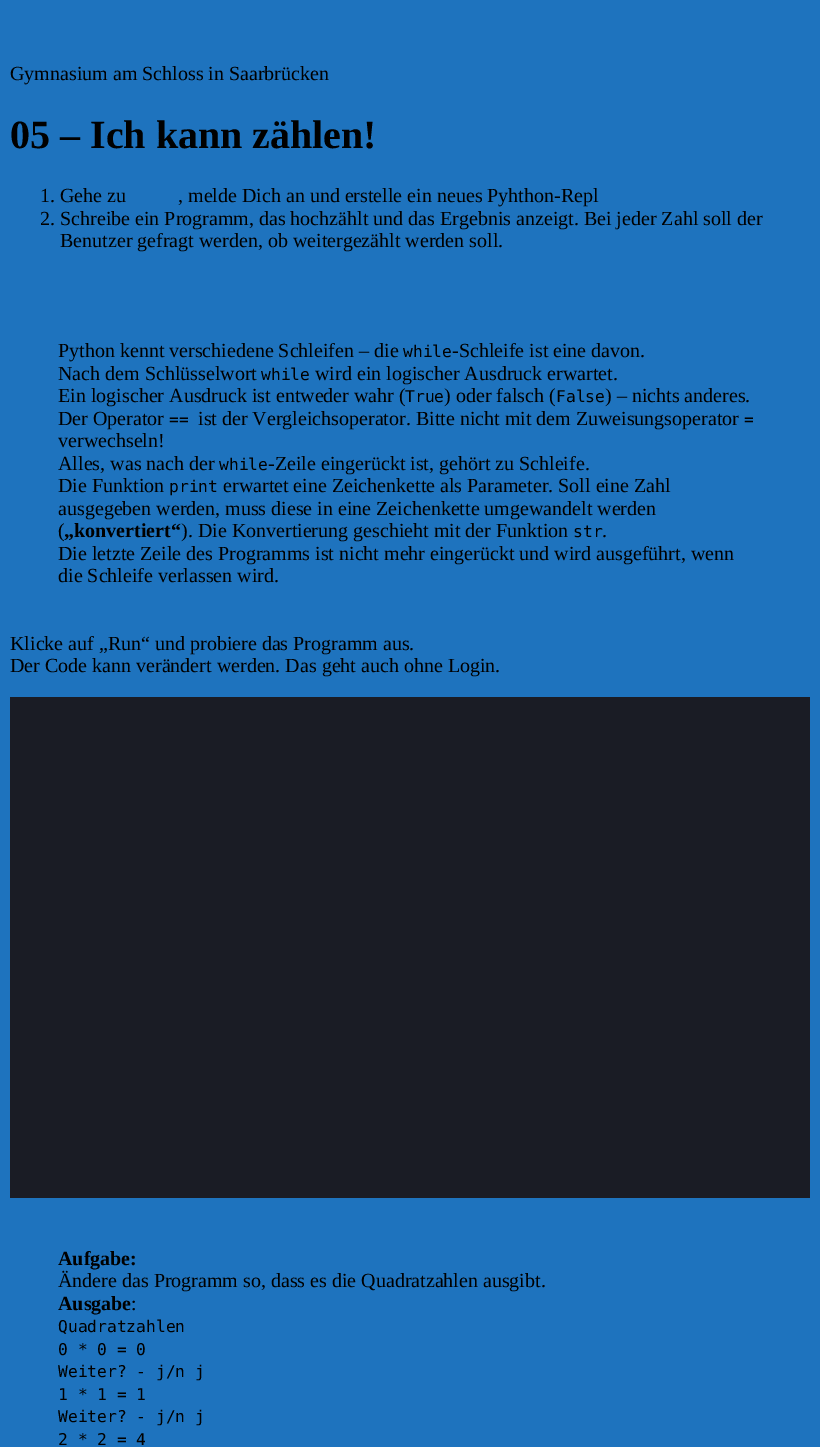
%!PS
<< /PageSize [820 1447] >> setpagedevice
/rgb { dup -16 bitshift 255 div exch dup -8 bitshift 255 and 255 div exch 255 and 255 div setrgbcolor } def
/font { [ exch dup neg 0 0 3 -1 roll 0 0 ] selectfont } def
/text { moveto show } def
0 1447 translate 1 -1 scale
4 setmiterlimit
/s1 { /LiberationSerif-Regular 20 font 16#000000 rgb } def
/s2 { /LiberationSerif-Bold 40 font 16#000000 rgb } def
/s3 { /DejaVuSansMono-Regular 16.25 font 16#000000 rgb } def
/s4 { /LiberationSerif-Bold 20 font 16#000000 rgb } def
16#1E73BE rgb
0 0 820 1447 rectfill
s1
(Gymnasium am Schloss in Saarbrücken) 10 80 text
s2
(05 – Ich kann zählen!) 10 148 text
s1
(1. Gehe zu) 40 202 text
(, melde Dich an und erstelle ein neues Pyhthon-Repl) 178 202 text
(2. Schreibe ein Programm, das hochzählt und das Ergebnis anzeigt. Bei jeder Zahl soll der) 40 225 text
(Benutzer gefragt werden, ob weitergezählt werden soll.) 60 247 text
(Python kennt verschiedene Schleifen – die) 58 357 text
s3
(while) 403 357 text
s1
(-Schleife ist eine davon.) 452 357 text
(Nach dem Schlüsselwort) 58 380 text
s3
(while) 261 380 text
s1
(wird ein logischer Ausdruck erwartet.) 315 380 text
(Ein logischer Ausdruck ist entweder wahr \() 58 402 text
s3
(True) 405 402 text
s1
(\) oder falsch \() 444 402 text
s3
(False) 556 402 text
s1
(\) – nichts anderes.) 605 402 text
(Der Operator) 58 425 text
s3
(==) 169 425 text
s1
(ist der Vergleichsoperator. Bitte nicht mit dem Zuweisungsoperator) 198 425 text
s3
(=) 744 425 text
s1
(verwechseln!) 58 447 text
(Alles, was nach der) 58 470 text
s3
(while) 219 470 text
s1
(-Zeile eingerückt ist, gehört zu Schleife.) 268 470 text
(Die Funktion) 58 492 text
s3
(print) 169 492 text
s1
(erwartet eine Zeichenkette als Parameter. Soll eine Zahl) 223 492 text
(ausgegeben werden, muss diese in eine Zeichenkette umgewandelt werden) 58 515 text
(\() 58 537 text
s4
(„konvertiert“) 64 537 text
s1
(\). Die Konvertierung geschieht mit der Funktion) 181 537 text
s3
(str) 573 537 text
s1
(.) 602 537 text
(Die letzte Zeile des Programms ist nicht mehr eingerückt und wird ausgeführt, wenn) 58 560 text
(die Schleife verlassen wird.) 58 582 text
(Klicke auf „Run“ und probiere das Programm aus.) 10 650 text
(Der Code kann verändert werden. Das geht auch ohne Login.) 10 672 text
16#1A1C25 rgb
10 697 800 501 rectfill
s4
(Aufgabe:) 58 1265 text
s1
(Ändere das Programm so, dass es die Quadratzahlen ausgibt.) 58 1287 text
s4
(Ausgabe) 58 1310 text
s1
(:) 131 1310 text
s3
(Quadratzahlen) 58 1332 text
(0 * 0 = 0) 58 1355 text
(Weiter? - j/n j) 58 1377 text
(1 * 1 = 1) 58 1400 text
(Weiter? - j/n j) 58 1422 text
(2 * 2 = 4) 58 1445 text
showpage
